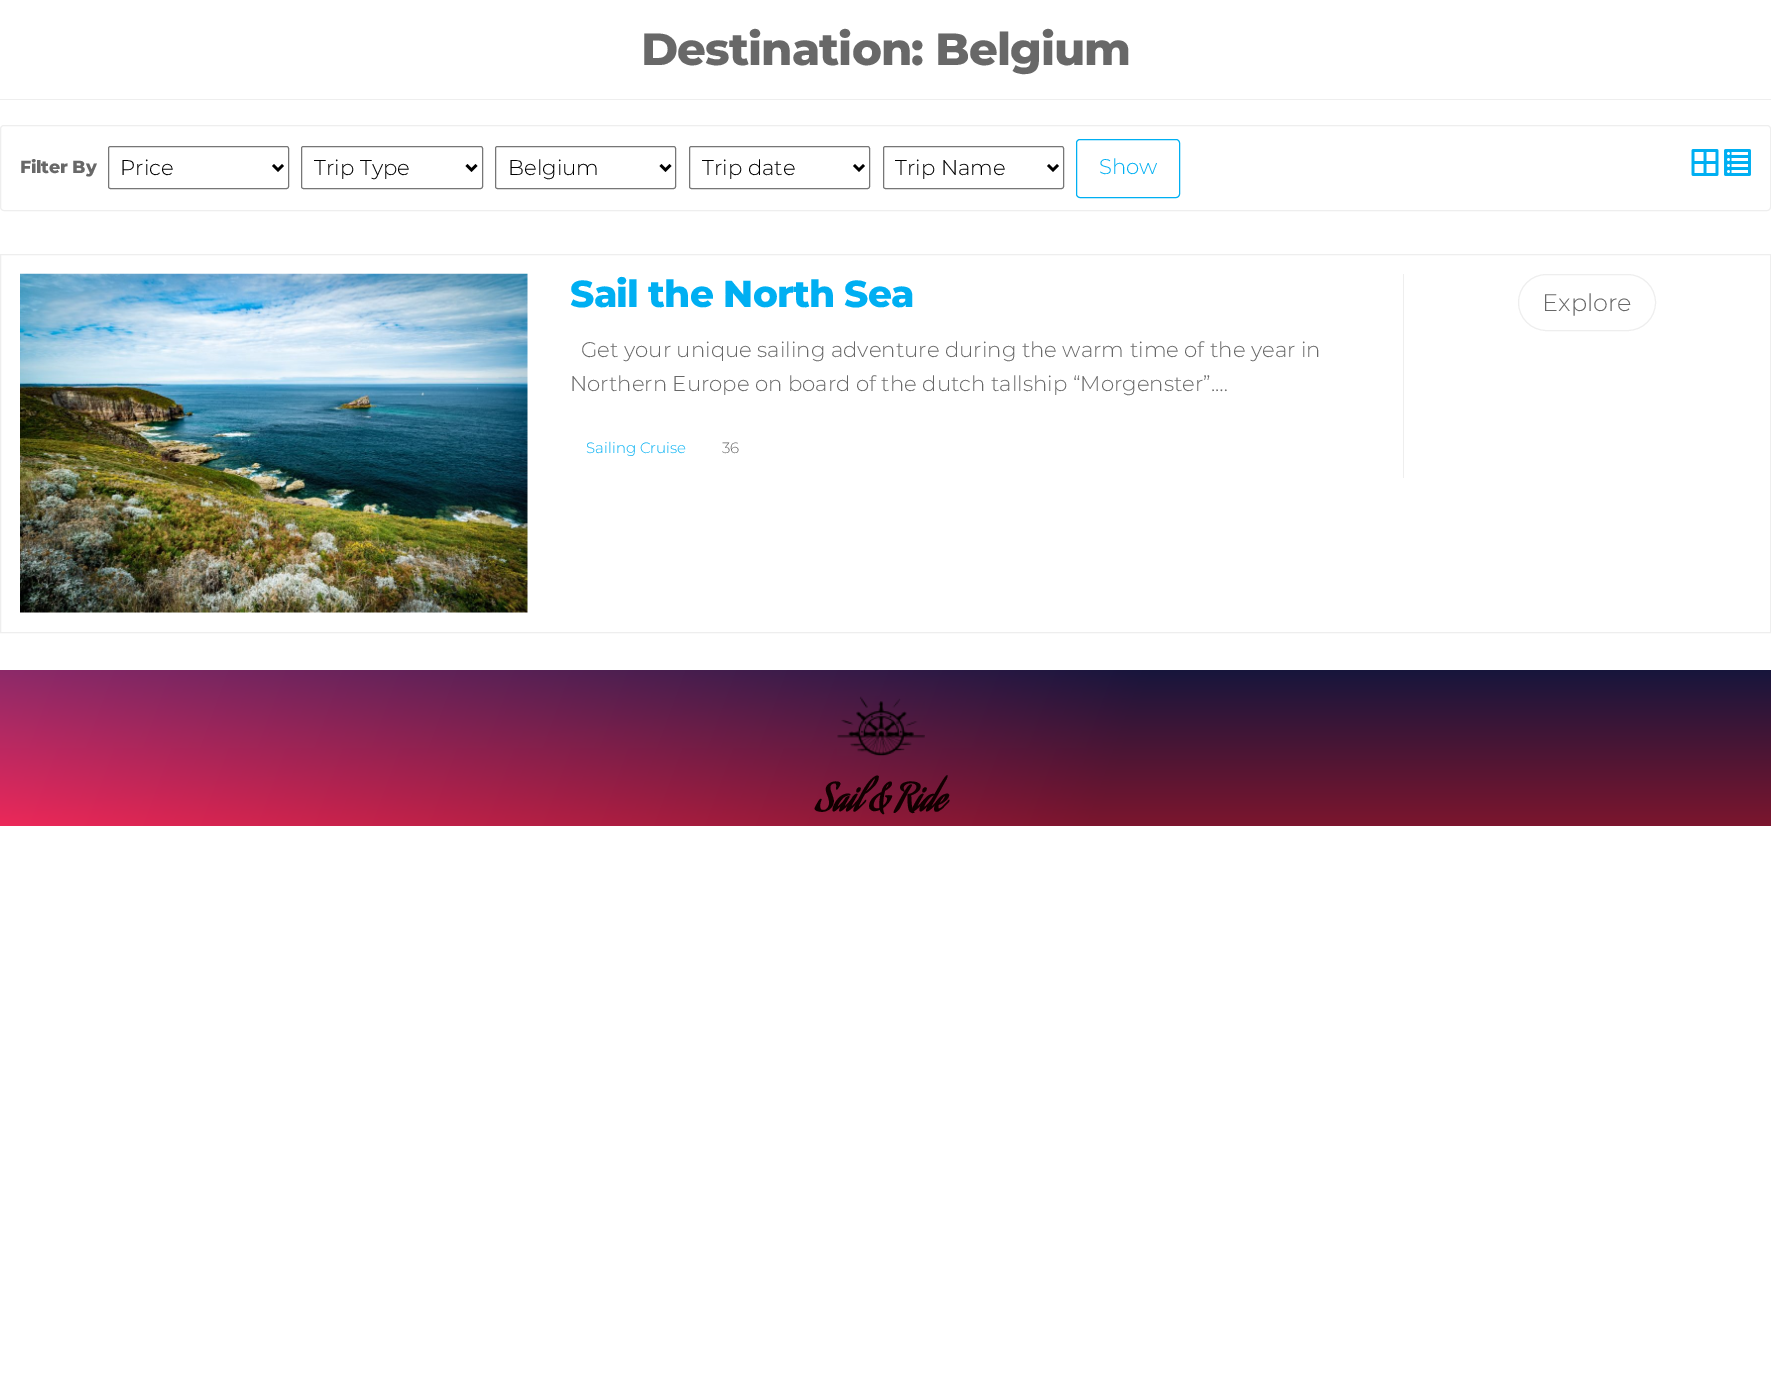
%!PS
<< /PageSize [1771 1395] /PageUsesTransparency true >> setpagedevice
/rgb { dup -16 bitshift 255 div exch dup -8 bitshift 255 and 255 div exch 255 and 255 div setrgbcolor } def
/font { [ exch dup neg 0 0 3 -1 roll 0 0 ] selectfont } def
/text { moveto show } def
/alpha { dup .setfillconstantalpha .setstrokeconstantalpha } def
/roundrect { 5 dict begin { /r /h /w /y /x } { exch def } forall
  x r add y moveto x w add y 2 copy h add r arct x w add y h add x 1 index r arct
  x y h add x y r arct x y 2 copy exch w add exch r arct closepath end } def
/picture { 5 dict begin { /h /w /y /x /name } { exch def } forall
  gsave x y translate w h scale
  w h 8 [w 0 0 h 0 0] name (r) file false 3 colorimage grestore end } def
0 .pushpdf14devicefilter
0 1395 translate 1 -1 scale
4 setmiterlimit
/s1 { /Montserrat-Light 21.25 font 16#000000 rgb } def
/s2 { /Montserrat-Light 21.25 font 16#00AFF2 rgb } def
/s3 { /Montserrat-Light 21.25 font 16#686868 rgb } def
/s4 { /Montserrat-Light 15 font 16#00AFF2 rgb } def
/s5 { /Montserrat-Light 15 font 16#686868 rgb } def
/s6 { /Montserrat-Light 24 font 16#686868 rgb } def
16#FFFFFF rgb
0 0 1771 1395 rectfill
16#EEEEEE rgb
0 99 1771 1 rectfill
/Montserrat-ExtraBold 45 font
16#686868 rgb
641 65 moveto -0.9 0 (Destination: Belgium) ashow
16#EEEEEE rgb
0.5 125.5 1770 85 3.5 roundrect stroke
/Montserrat-ExtraBold 17.5 font
16#686868 rgb
20 173 moveto -0.25 0 (Filter By) ashow
16#767676 rgb
108.5 146.5 180 42 2 roundrect stroke
16#000000 rgb
2.5 setlinewidth
273 165 moveto 278 170 lineto 283 165 lineto stroke
s1
(Price) 120 175 text
16#767676 rgb
1 setlinewidth
301.5 146.5 181 42 2 roundrect stroke
16#000000 rgb
2.5 setlinewidth
466.5 165 moveto 471.5 170 lineto 476.5 165 lineto stroke
(Trip Type) 314 175 text
16#767676 rgb
1 setlinewidth
495.5 146.5 180 42 2 roundrect stroke
16#000000 rgb
2.5 setlinewidth
660.5 165 moveto 665.5 170 lineto 670.5 165 lineto stroke
(Belgium) 508 175 text
16#767676 rgb
1 setlinewidth
689.5 146.5 180 42 2 roundrect stroke
16#000000 rgb
2.5 setlinewidth
854 165 moveto 859 170 lineto 864 165 lineto stroke
(Trip date) 702 175 text
16#767676 rgb
1 setlinewidth
883.5 146.5 180 42 2 roundrect stroke
16#000000 rgb
2.5 setlinewidth
1048 165 moveto 1053 170 lineto 1058 165 lineto stroke
(Trip Name) 895 175 text
16#00AFF2 rgb
1 setlinewidth
1076.5 139.5 103 58 3.5 roundrect stroke
(Show) 1099 174 text
(pic1.raw) 1691 149 28 27 picture
(pic2.raw) 1724 149 27 27 picture
16#EEEEEE rgb
0.5 254.5 1770 378 rectstroke
(pic3.raw) 20 273 508 340 picture
/Montserrat-ExtraBold 37.5 font
16#00AFF2 rgb
570 307 moveto -0.75 0 (Sail the North Sea) ashow
s3
(Get your unique sailing adventure during the warm time of the year in) 581 357 text
(Northern Europe on board of the dutch tallship “Morgenster”.…) 570 391 text
s4
(Sailing Cruise) 586 453 text
s5
(36) 722 453 text
16#EEEEEE rgb
1403 274 1 204 rectfill
1518.5 274.5 137 56 28 roundrect stroke
s6
(Explore) 1542 311 text
gsave 0 670 moveto 1771 670 lineto 1771 826 lineto 0 826 lineto closepath clip newpath
<< /ShadingType 2 /ColorSpace /DeviceRGB /Coords [1693 1042 78 454] /Extend [true true] /Function << /FunctionType 3 /Domain [0 1] /Functions [<< /FunctionType 2 /Domain [0 1] /C0 [0.02 0 0] /C1 [0.02 0 0] /N 1 >> << /FunctionType 2 /Domain [0 1] /C0 [0.02 0 0] /C1 [0.949 0.161 0.357] /N 1 >>] /Bounds [0.37] /Encode [0 1 0 1] >> >> shfill grestore
0.5 alpha
gsave 0 670 moveto 1771 670 lineto 1771 826 lineto 0 826 lineto closepath clip newpath
<< /ShadingType 2 /ColorSpace /DeviceRGB /Coords [886 670 886 826] /Extend [true true] /Function << /FunctionType 2 /Domain [0 1] /C0 [0.157 0.169 0.467] /C1 [0.949 0.161 0.357] /N 1 >> >> shfill grestore
1 alpha
(pic4.raw) 837 696 88 60 picture
/AguafinaScript-Bold 37.5 font
16#110000 rgb
816 811 moveto 0.1 0 (Sail & Ride) ashow
.poppdf14devicefilter showpage
